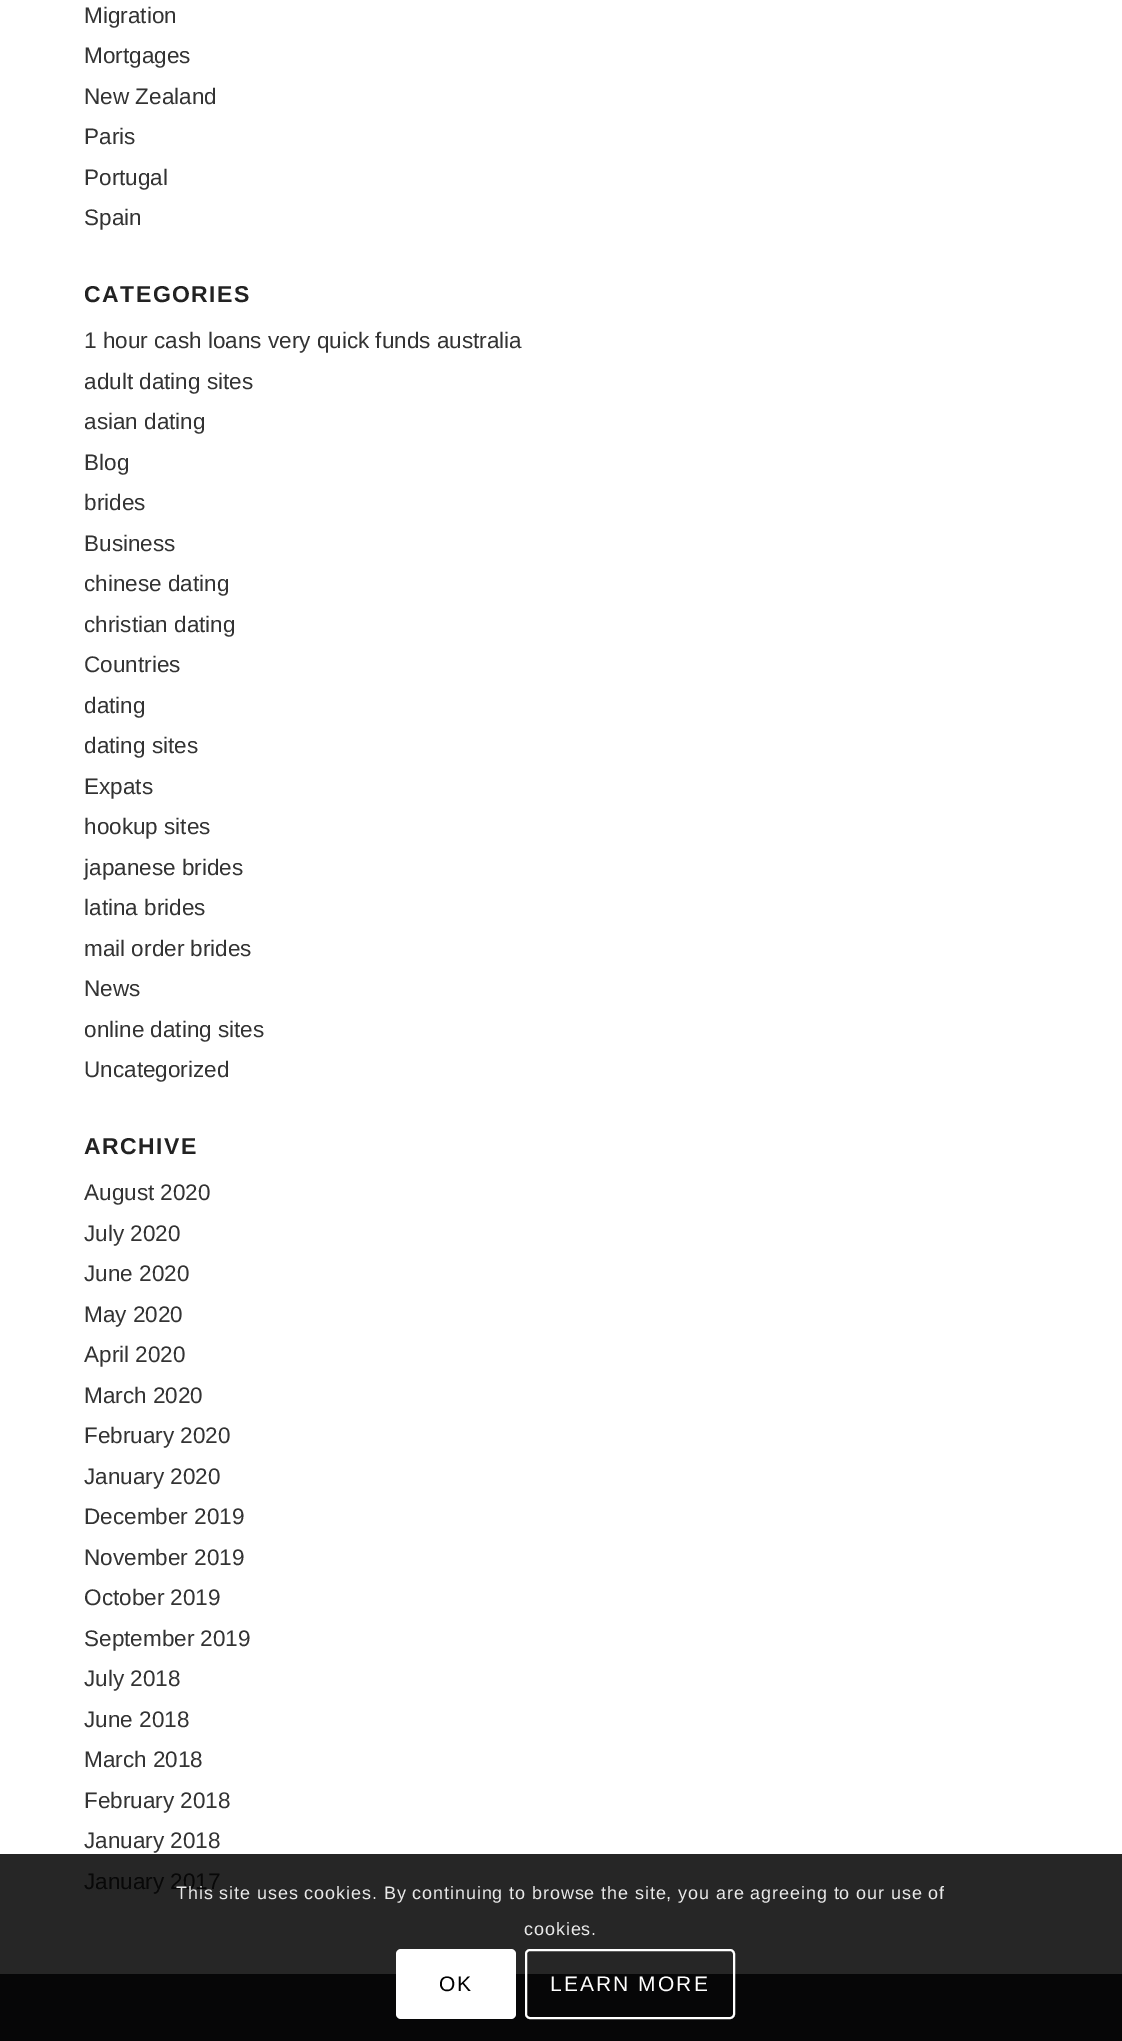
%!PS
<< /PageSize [1122 2041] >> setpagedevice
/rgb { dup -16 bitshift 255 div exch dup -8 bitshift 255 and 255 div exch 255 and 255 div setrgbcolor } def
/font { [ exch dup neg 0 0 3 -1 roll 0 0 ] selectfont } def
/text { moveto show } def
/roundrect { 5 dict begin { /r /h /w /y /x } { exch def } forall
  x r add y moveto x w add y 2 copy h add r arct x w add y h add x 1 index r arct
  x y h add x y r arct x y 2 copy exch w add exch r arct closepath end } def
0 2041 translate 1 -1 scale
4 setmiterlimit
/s1 { /LiberationSans-Regular 22.5 font 16#333333 rgb } def
/s2 { /LiberationSans-Regular 22.5 font 16#080808 rgb } def
16#FFFFFF rgb
0 0 1122 2041 rectfill
16#262626 rgb
0 1854 1122 120 rectfill
s1
(Migration) 84 23 text
(Mortgages) 84 63 text
(New Zealand) 84 104 text
(Paris) 84 144 text
(Portugal) 84 185 text
(Spain) 84 225 text
/LiberationSans-Bold 23 font
16#222222 rgb
84 302 moveto 1.5 0 (CATEGORIES) ashow
s1
(1 hour cash loans very quick funds australia) 84 348 text
(adult dating sites) 84 389 text
(asian dating) 84 429 text
(Blog) 84 470 text
(brides) 84 510 text
(Business) 84 551 text
(chinese dating) 84 591 text
(christian dating) 84 632 text
(Countries) 84 672 text
(dating) 84 713 text
(dating sites) 84 753 text
(Expats) 84 794 text
(hookup sites) 84 834 text
(japanese brides) 84 875 text
(latina brides) 84 915 text
(mail order brides) 84 956 text
(News) 84 996 text
(online dating sites) 84 1037 text
(Uncategorized) 84 1077 text
/LiberationSans-Bold 23 font
16#222222 rgb
84 1154 moveto 1.5 0 (ARCHIVE) ashow
s1
(August 2020) 84 1200 text
(July 2020) 84 1241 text
(June 2020) 84 1281 text
(May 2020) 84 1322 text
(April 2020) 84 1362 text
(March 2020) 84 1403 text
(February 2020) 84 1443 text
(January 2020) 84 1484 text
(December 2019) 84 1524 text
(November 2019) 84 1565 text
(October 2019) 84 1605 text
(September 2019) 84 1646 text
(July 2018) 84 1686 text
(June 2018) 84 1727 text
(March 2018) 84 1767 text
(February 2018) 84 1808 text
(January 2018) 84 1848 text
s2
(January 2017) 84 1889 text
16#060607 rgb
0 1974 1122 67 rectfill
/LiberationSans-Regular 18 font
16#E9E9E9 rgb
176 1899 moveto 0.9 0 (This site uses cookies. By continuing to browse the site, you are agreeing to our use of) ashow
524 1935 moveto 0.9 0 (cookies.) ashow
16#FFFFFF rgb
396 1949 120 70 5 roundrect fill
/LiberationSans-Regular 21 font
16#000000 rgb
439 1991 moveto 2.1 0 (OK) ashow
16#FFFFFF rgb
2 setlinewidth
526 1950 208 68 4 roundrect stroke
550 1991 moveto 2.1 0 (LEARN MORE) ashow
showpage
